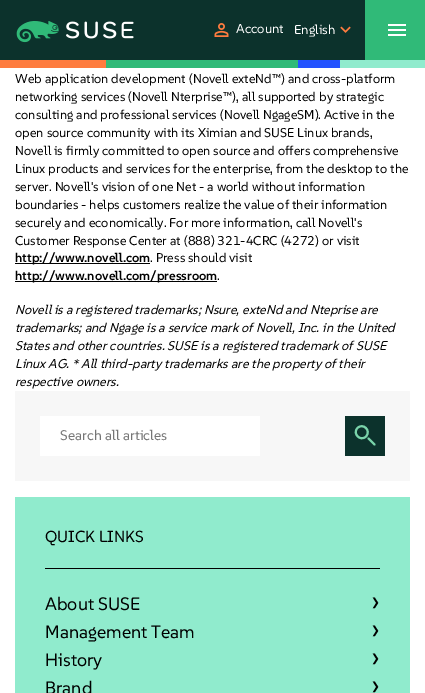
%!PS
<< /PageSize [425 693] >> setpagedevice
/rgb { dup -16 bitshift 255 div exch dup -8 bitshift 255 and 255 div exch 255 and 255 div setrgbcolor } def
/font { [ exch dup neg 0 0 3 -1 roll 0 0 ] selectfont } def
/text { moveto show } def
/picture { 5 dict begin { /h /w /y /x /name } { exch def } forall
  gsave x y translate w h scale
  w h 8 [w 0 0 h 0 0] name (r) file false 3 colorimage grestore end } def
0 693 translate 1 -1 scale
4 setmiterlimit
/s1 { /SUSE-Regular 13 font 16#FFFFFF rgb } def
/s2 { /SUSE-Regular 12.8 font 16#000000 rgb } def
/s3 { /SUSE-SemiBold 12.8 font 16#000000 rgb } def
/s4 { /SUSE-Italic 12.8 font 16#000000 rgb } def
/s5 { /SUSE-Regular 14 font 16#757575 rgb } def
/s6 { /SUSE-Regular 16 font 16#000000 rgb } def
/s7 { /SUSE-Regular 18 font 16#000000 rgb } def
/s8 { /SUSE-Regular 30 font 16#000000 rgb } def
16#FFFFFF rgb
0 0 425 693 rectfill
16#0C322C rgb
0 0 365 60 rectfill
(pic1.raw) 16 21 118 22 picture
(pic2.raw) 214 23 15 14 picture
s1
(Account) 236 33 text
(English) 294 34 text
(pic3.raw) 340 26 11 7 picture
16#30BA78 rgb
365 0 60 60 rectfill
(pic4.raw) 388 24 18 12 picture
16#FE7C3F rgb
0 60 106 8 rectfill
16#30BA78 rgb
106 60 192 8 rectfill
16#2453FF rgb
298 60 42 8 rectfill
16#90EBCD rgb
340 60 85 8 rectfill
s2
(Web application development \(Novell exteNd™\) and cross-platform) 15 83 text
(networking services \(Novell Nterprise™\), all supported by strategic) 15 101 text
(consulting and professional services \(Novell NgageSM\). Active in the) 15 119 text
(open source community with its Ximian and SUSE Linux brands,) 15 137 text
(Novell is firmly committed to open source and offers comprehensive) 15 155 text
(Linux products and services for the enterprise, from the desktop to the) 15 173 text
(server. Novell's vision of one Net - a world without information) 15 191 text
(boundaries - helps customers realize the value of their information) 15 209 text
(securely and economically. For more information, call Novell's) 15 227 text
(Customer Response Center at \(888\) 321-4CRC \(4272\) or visit) 15 245 text
15 263 135 1 rectfill
s3
(http://www.novell.com) 15 262 text
s2
(. Press should visit) 150 262 text
15 281 202 1 rectfill
s3
(http://www.novell.com/pressroom) 15 280 text
s2
(.) 217 280 text
s4
(Novell is a registered trademarks; Nsure, exteNd and Nteprise are) 15 314 text
(trademarks; and Ngage is a service mark of Novell, Inc. in the United) 15 332 text
(States and other countries. SUSE is a registered trademark of SUSE) 15 350 text
(Linux AG. * All third-party trademarks are the property of their) 15 368 text
(respective owners.) 15 386 text
16#F7F7F7 rgb
15 391 395 90 rectfill
16#FFFFFF rgb
40 416 220 40 rectfill
s5
(Search all articles) 60 440 text
16#0C322C rgb
345 416 40 40 rectfill
16#7AD4AA rgb
2 setlinewidth
1 setlinecap
357.5 428 moveto 363 422.5 371.5 430.5 366 436.5 curveto 360.5 442 352 433.5 357.5 428 curveto closepath 368.5 438.5 moveto 374.5 444.5 lineto stroke
16#90EBCD rgb
15 497 395 196 rectfill
s6
(QUICK LINKS) 45 542 text
45 568 335 1 rectfill
s7
(About SUSE) 45 610 text
s8
(›) 371 611 text
s7
(Management Team) 45 638 text
s8
(›) 371 639 text
s7
(History) 45 666 text
s8
(›) 371 667 text
s7
(Brand) 45 694 text
s8
(›) 371 695 text
showpage
